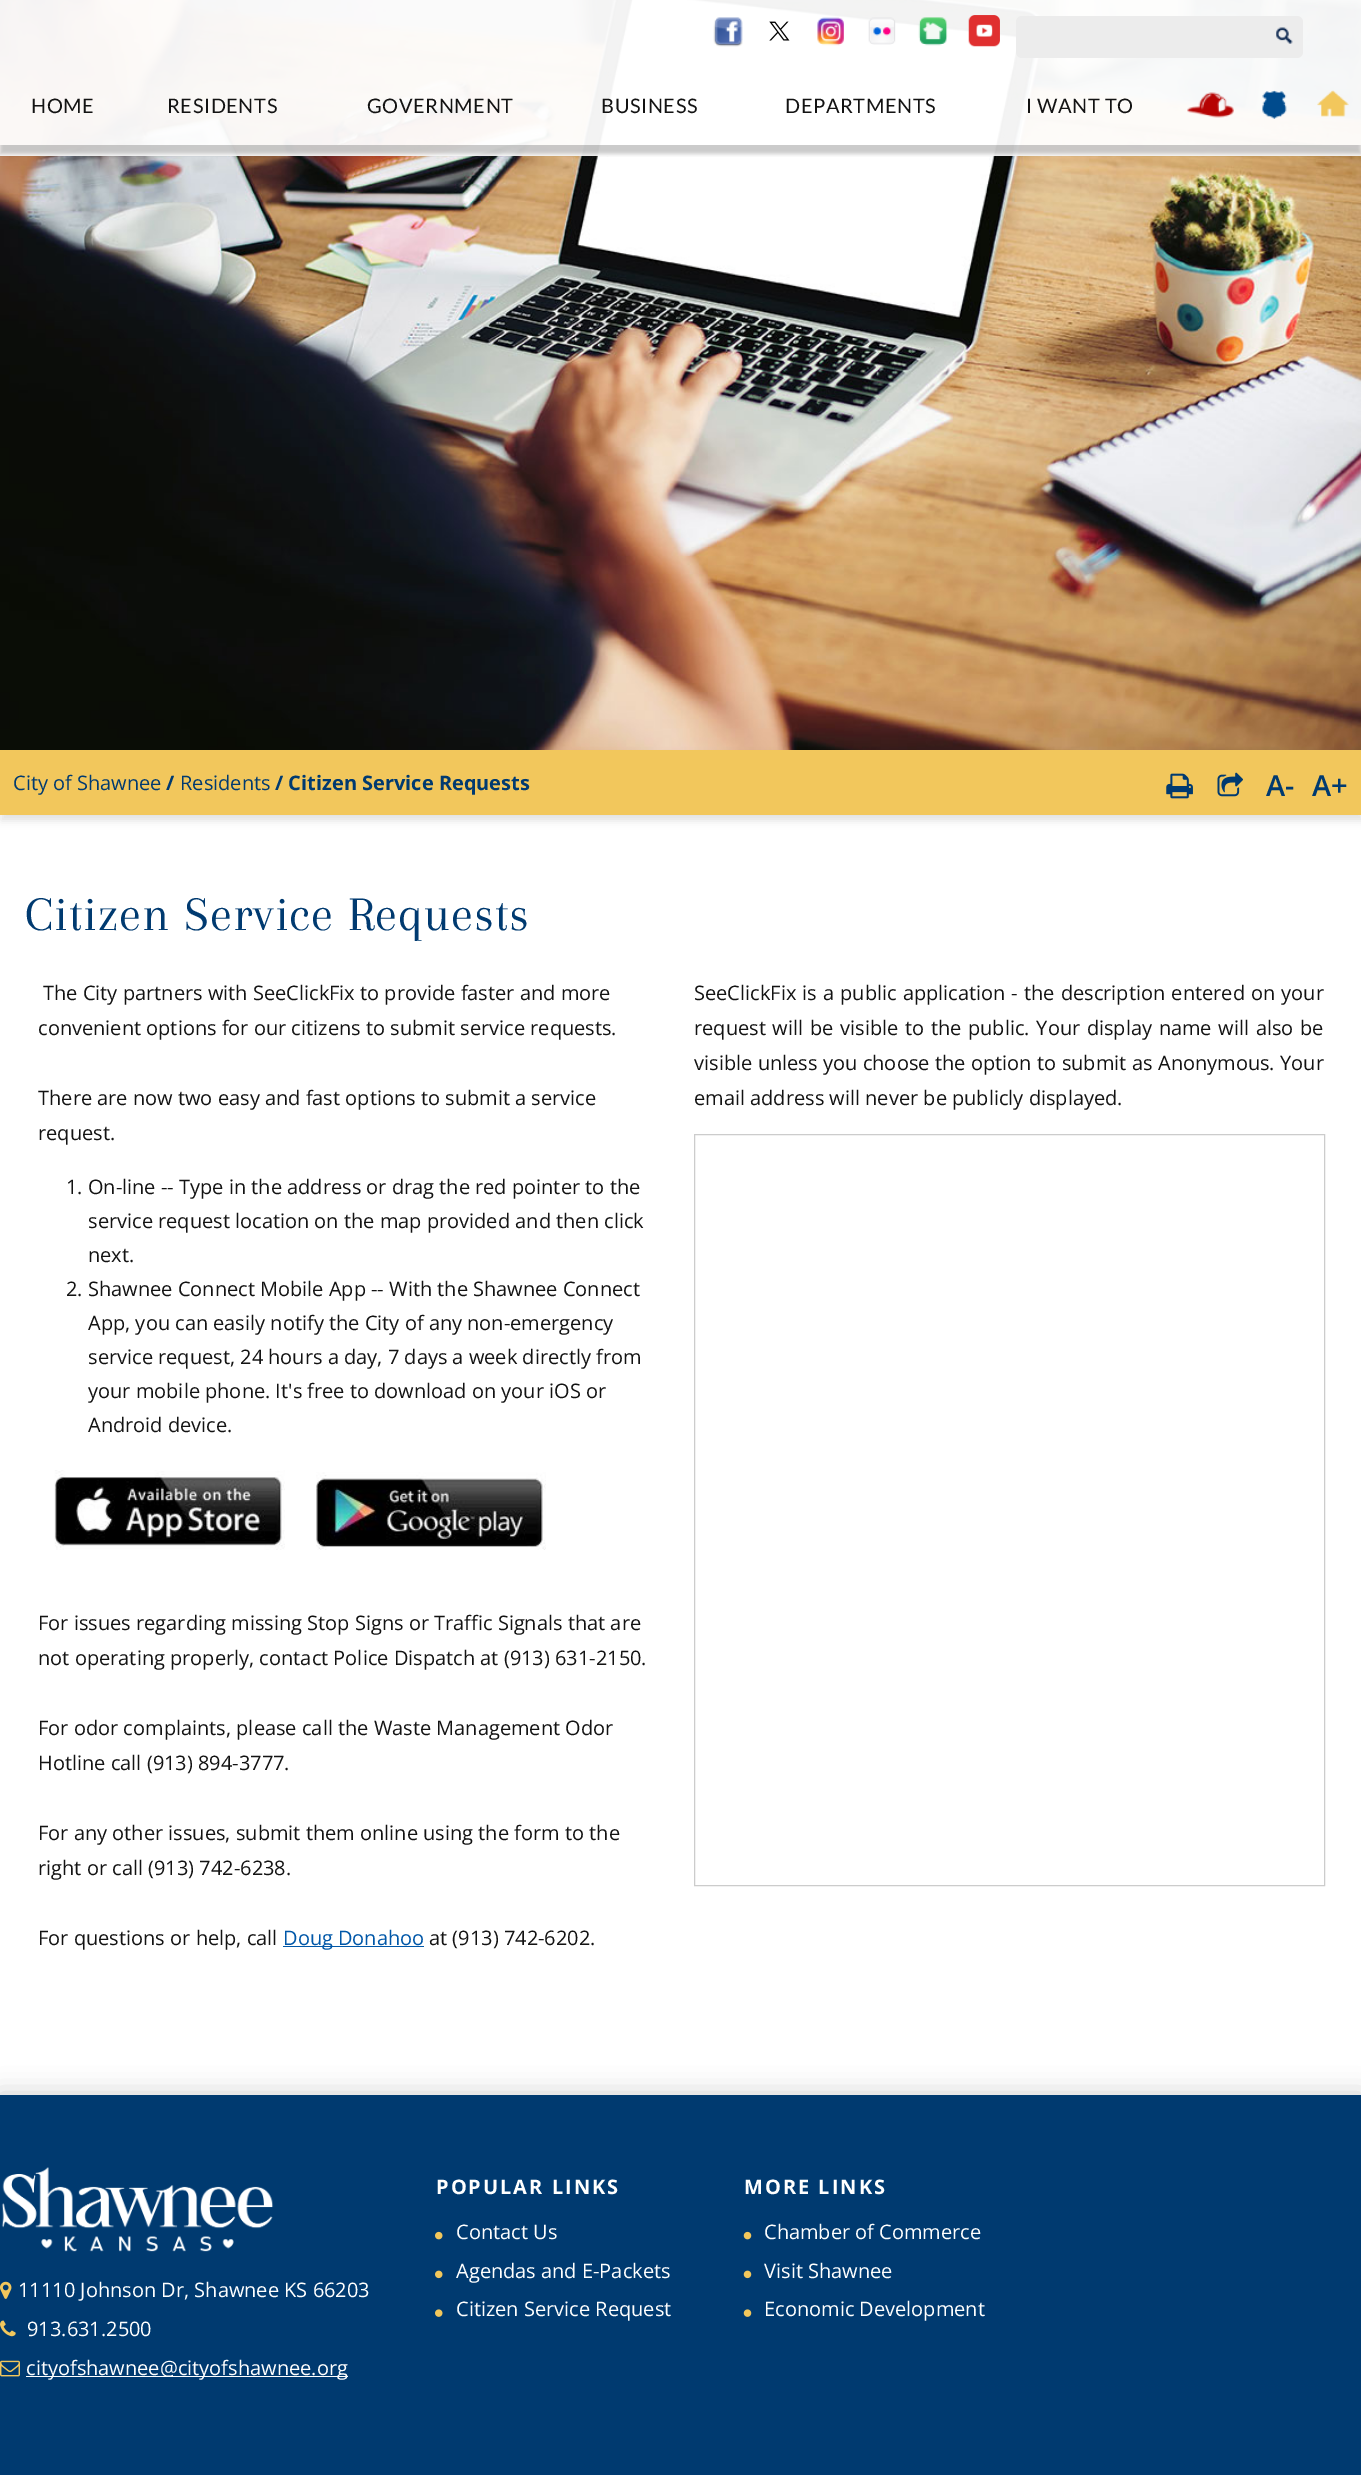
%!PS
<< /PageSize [1361 2475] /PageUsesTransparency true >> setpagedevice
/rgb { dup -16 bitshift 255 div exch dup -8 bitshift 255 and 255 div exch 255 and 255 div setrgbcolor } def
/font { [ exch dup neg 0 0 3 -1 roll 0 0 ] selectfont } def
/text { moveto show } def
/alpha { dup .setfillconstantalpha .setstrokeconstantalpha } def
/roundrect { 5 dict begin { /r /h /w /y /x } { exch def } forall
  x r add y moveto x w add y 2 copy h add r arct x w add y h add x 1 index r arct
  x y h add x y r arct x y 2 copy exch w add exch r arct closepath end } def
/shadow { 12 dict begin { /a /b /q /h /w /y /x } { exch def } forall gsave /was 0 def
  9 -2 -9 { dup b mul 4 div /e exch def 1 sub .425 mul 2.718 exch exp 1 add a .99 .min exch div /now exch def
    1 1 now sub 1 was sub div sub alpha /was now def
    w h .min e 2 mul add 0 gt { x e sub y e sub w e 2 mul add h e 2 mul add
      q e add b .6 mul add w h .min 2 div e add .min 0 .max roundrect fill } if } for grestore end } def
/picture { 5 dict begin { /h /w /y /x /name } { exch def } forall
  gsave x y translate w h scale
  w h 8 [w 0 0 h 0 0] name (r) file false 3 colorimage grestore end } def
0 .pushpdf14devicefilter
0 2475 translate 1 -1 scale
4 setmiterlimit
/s1 { /OpenSans-Regular 20 font 16#003A70 rgb } def
/s2 { /OpenSans-Bold 20 font 16#003A70 rgb } def
/s3 { /OpenSans-SemiBold 29 font 16#003A70 rgb } def
/s4 { /OpenSans-Regular 20 font 16#131313 rgb } def
/s5 { /OpenSans-Regular 20 font 16#0057A8 rgb } def
/s6 { /OpenSans-Regular 20 font 16#FFFFFF rgb } def
16#FFFFFF rgb
0 0 1361 2475 rectfill
(pic11.raw) 0 0 1361 750 picture
0.95 alpha
0 0 1361 156 rectfill
1 alpha
(pic1.raw) 713 17 30 30 picture
(pic2.raw) 769 21 21 20 picture
(pic3.raw) 817 17 27 29 picture
(pic4.raw) 868 17 28 28 picture
(pic5.raw) 918 17 30 29 picture
(pic6.raw) 968 15 32 32 picture
16#ECECEC rgb
1016 16 287 42 6 roundrect fill
(pic7.raw) 1276 27 17 17 picture
gsave
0 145 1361 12 rectclip
16#000000 rgb
0 76 1361 78 0 2 0.21 shadow
grestore
/Lato-Regular 20 font
16#131313 rgb
31 113 moveto 0.6 0 (HOME) ashow
167 113 moveto 0.6 0 (RESIDENTS) ashow
367 113 moveto 0.6 0 (GOVERNMENT) ashow
601 113 moveto 0.6 0 (BUSINESS) ashow
785 113 moveto 0.6 0 (DEPARTMENTS) ashow
1026 113 moveto 0.6 0 (I WANT TO) ashow
(pic8.raw) 1187 92 47 26 picture
(pic9.raw) 1262 90 25 29 picture
(pic10.raw) 1317 90 32 27 picture
16#000000 rgb
1 756 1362 65 0 4 0.11 shadow
16#F2C75C rgb
0 750 1361 65 rectfill
s1
(City of Shawnee) 13 790 text
s2
(/) 166 790 text
s1
(Residents) 180 790 text
s2
(/ Citizen Service Requests) 275 790 text
(pic12.raw) 1166 773 27 26 picture
(pic13.raw) 1217 772 26 25 picture
s3
(A-) 1266 796 text
(A+) 1312 796 text
/Arapey-Regular 50 font
25 930 moveto 1 0 (Citizen Service Requests) ashow
s4
(The City partners with SeeClickFix to provide faster and more) 43 1000 text
(convenient options for our citizens to submit service requests.) 38 1035 text
(There are now two easy and fast options to submit a service) 38 1105 text
(request.) 38 1140 text
(1. On-line -- Type in the address or drag the red pointer to the) 66 1194 text
(service request location on the map provided and then click) 88 1228 text
(next.) 88 1262 text
(2. Shawnee Connect Mobile App -- With the Shawnee Connect) 66 1296 text
(App, you can easily notify the City of any non-emergency) 88 1330 text
(service request, 24 hours a day, 7 days a week directly from) 88 1364 text
(your mobile phone. It's free to download on your iOS or) 88 1398 text
(Android device.) 88 1432 text
(pic14.raw) 54 1470 231 80 picture
(pic15.raw) 316 1472 230 78 picture
(For issues regarding missing Stop Signs or Traffic Signals that are) 38 1630 text
(not operating properly, contact Police Dispatch at \(913\) 631-2150.) 38 1665 text
(For odor complaints, please call the Waste Management Odor) 38 1735 text
(Hotline call \(913\) 894-3777.) 38 1770 text
(For any other issues, submit them online using the form to the) 38 1840 text
(right or call \(913\) 742-6238.) 38 1875 text
(For questions or help, call) 38 1945 text
16#0057A8 rgb
283 1946 141 1 rectfill
(Doug Donahoo) 283 1945 text
s4
(at \(913\) 742-6202.) 429 1945 text
694 1000 moveto 0.9 0 32 (SeeClickFix is a public application - the description entered on your) widthshow
694 1035 moveto 1.5 0 32 (request will be visible to the public. Your display name will also be) widthshow
694 1070 moveto 0.25 0 32 (visible unless you choose the option to submit as Anonymous. Your) widthshow
(email address will never be publicly displayed.) 694 1105 text
16#CCCCCC rgb
694.5 1134.5 630 751 rectstroke
16#000000 rgb
-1 2094 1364 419 0 12.5 0.19 shadow
16#003A70 rgb
0 2095 1361 380 rectfill
(pic16.raw) 1 2167 273 85 picture
(pic17.raw) 0 2281 12 18 picture
s6
(11110 Johnson Dr, Shawnee KS 66203) 18 2297 text
(pic18.raw) 0 2320 16 17 picture
(913.631.2500) 27 2336 text
(pic19.raw) 0 2360 20 17 picture
26 2376 322 1 rectfill
(cityofshawnee@cityofshawnee.org) 26 2375 text
/OpenSans-Bold 20 font
436 2194 moveto 2 0 (POPULAR LINKS) ashow
(pic20.raw) 435 2231 8 9 picture
s6
(Contact Us) 456 2239 text
(pic21.raw) 435 2270 8 9 picture
(Agendas and E-Packets) 456 2278 text
(pic22.raw) 435 2309 8 8 picture
(Citizen Service Request) 456 2316 text
/OpenSans-Bold 20 font
744 2194 moveto 2 0 (MORE LINKS) ashow
(pic23.raw) 743 2231 9 9 picture
s6
(Chamber of Commerce) 764 2239 text
(pic24.raw) 743 2270 9 9 picture
(Visit Shawnee) 764 2278 text
(pic25.raw) 743 2309 9 8 picture
(Economic Development) 764 2316 text
.poppdf14devicefilter showpage
